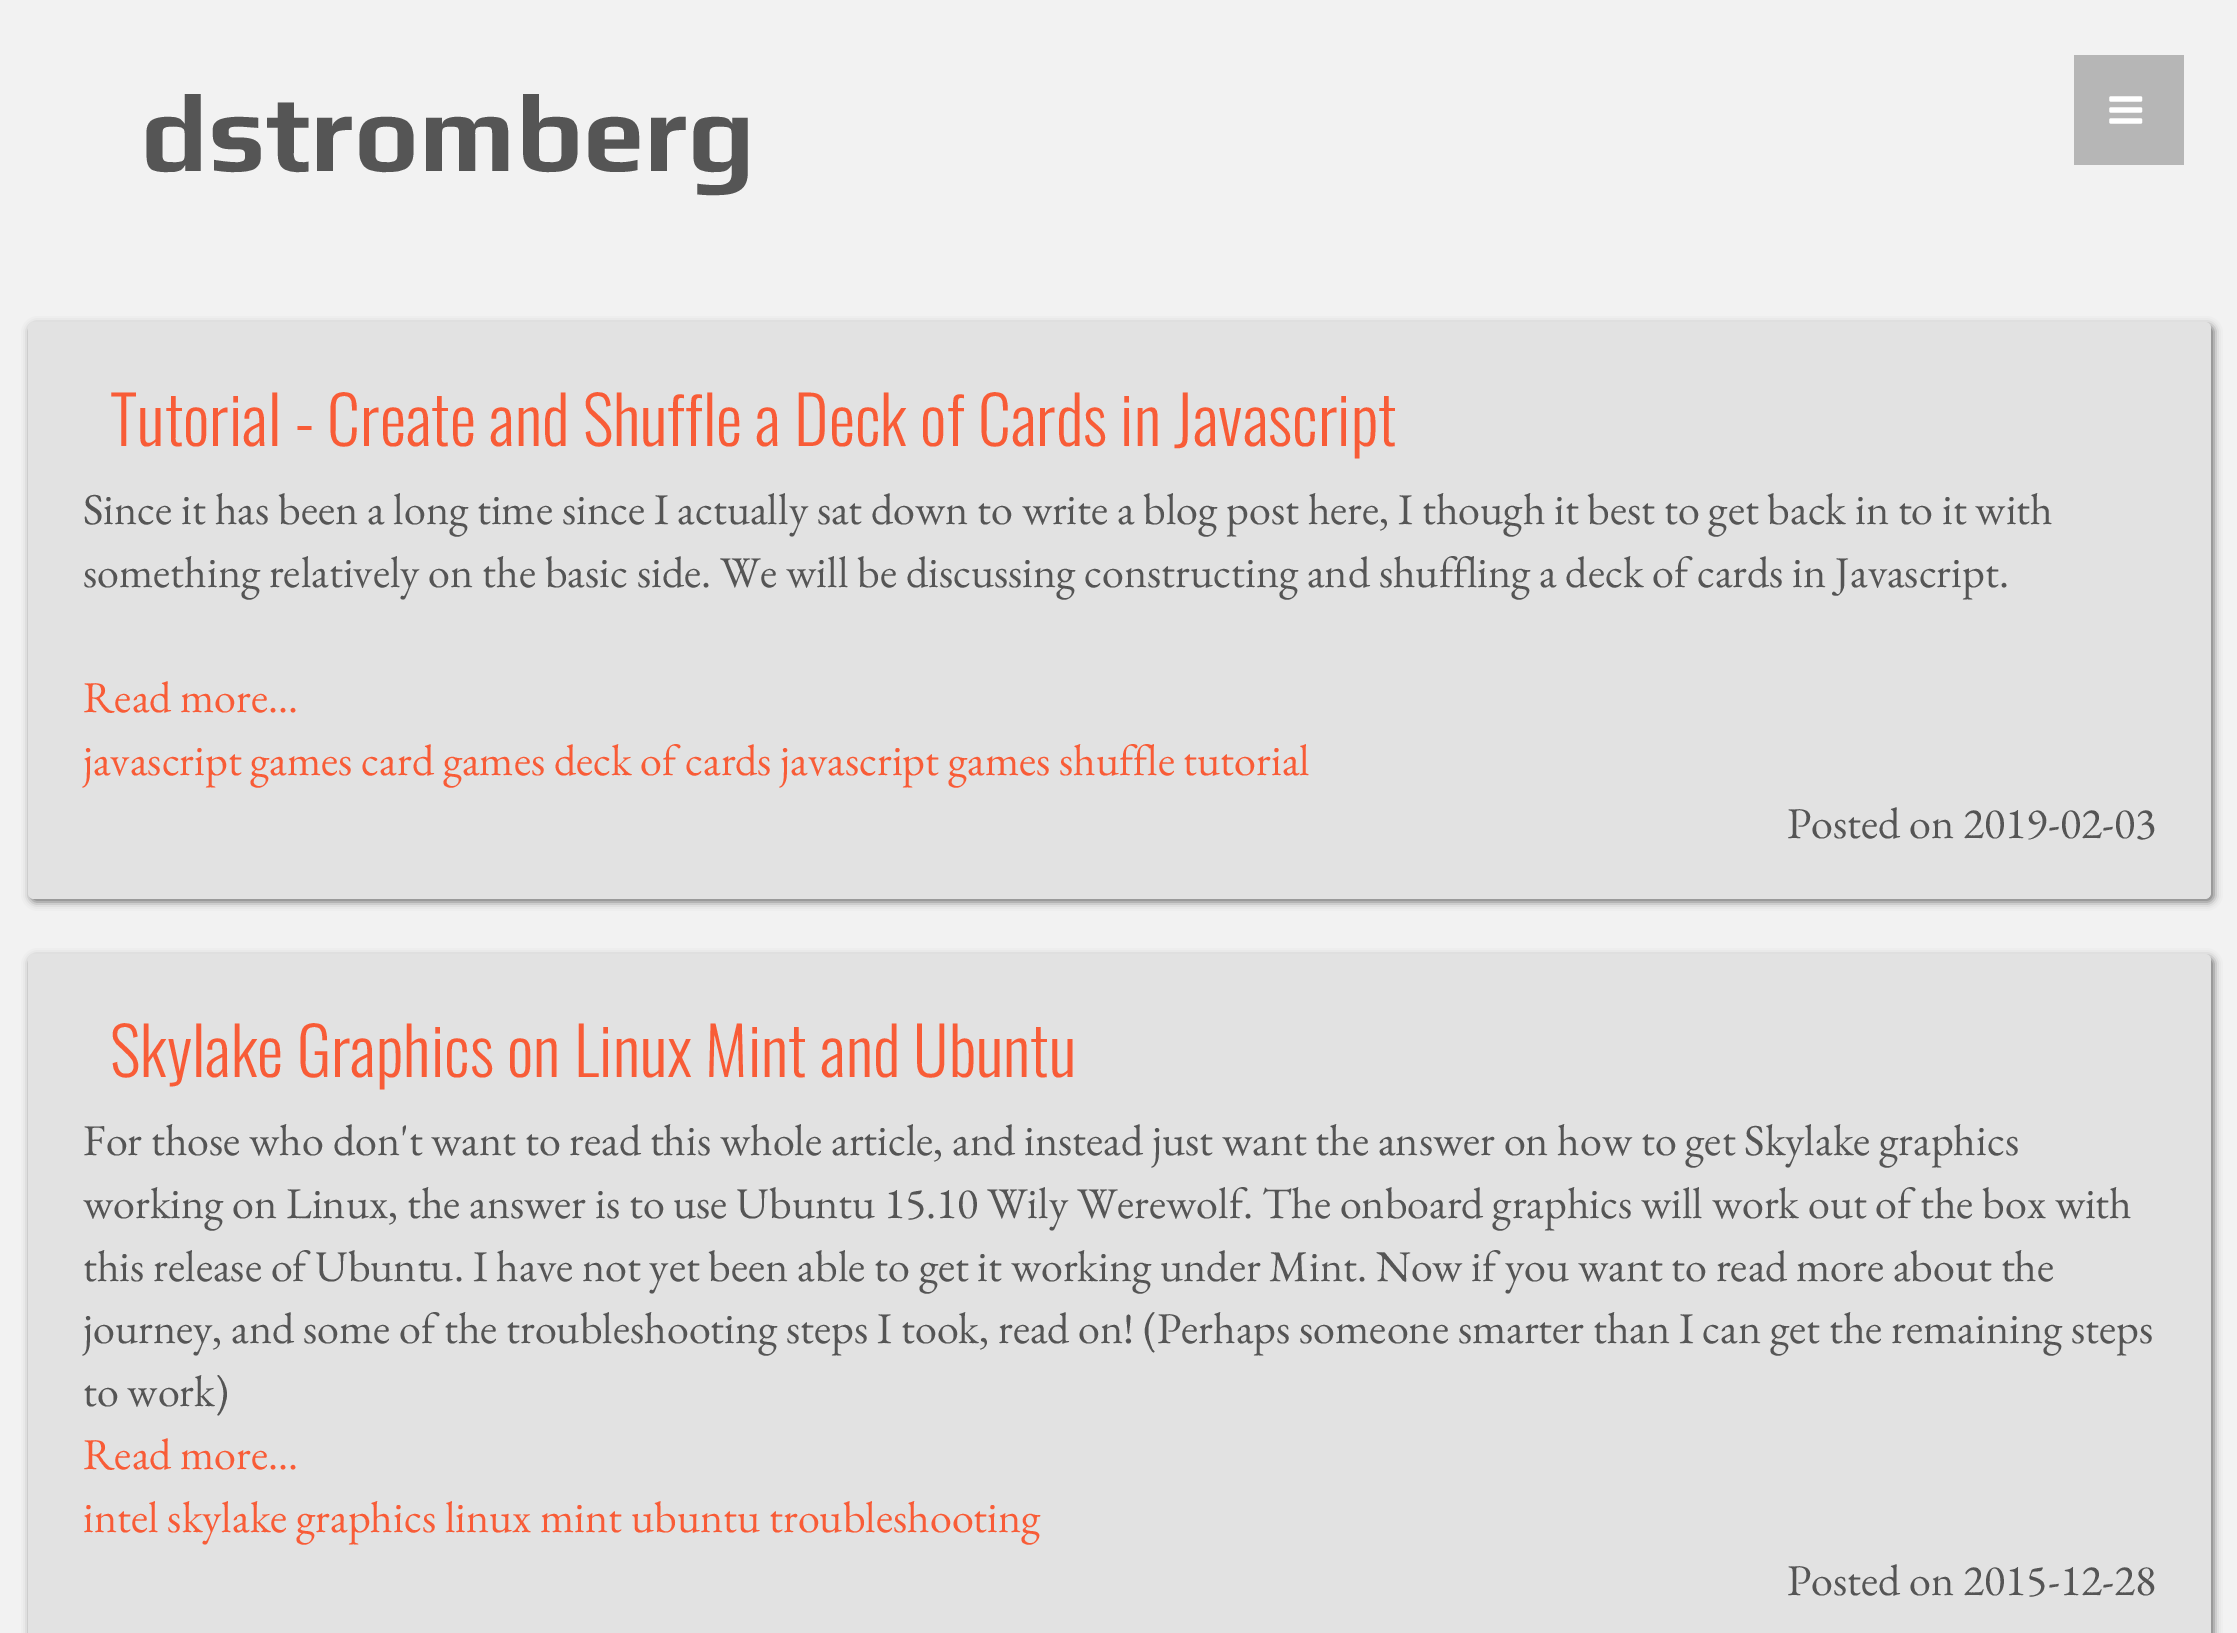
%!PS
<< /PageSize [2237 1633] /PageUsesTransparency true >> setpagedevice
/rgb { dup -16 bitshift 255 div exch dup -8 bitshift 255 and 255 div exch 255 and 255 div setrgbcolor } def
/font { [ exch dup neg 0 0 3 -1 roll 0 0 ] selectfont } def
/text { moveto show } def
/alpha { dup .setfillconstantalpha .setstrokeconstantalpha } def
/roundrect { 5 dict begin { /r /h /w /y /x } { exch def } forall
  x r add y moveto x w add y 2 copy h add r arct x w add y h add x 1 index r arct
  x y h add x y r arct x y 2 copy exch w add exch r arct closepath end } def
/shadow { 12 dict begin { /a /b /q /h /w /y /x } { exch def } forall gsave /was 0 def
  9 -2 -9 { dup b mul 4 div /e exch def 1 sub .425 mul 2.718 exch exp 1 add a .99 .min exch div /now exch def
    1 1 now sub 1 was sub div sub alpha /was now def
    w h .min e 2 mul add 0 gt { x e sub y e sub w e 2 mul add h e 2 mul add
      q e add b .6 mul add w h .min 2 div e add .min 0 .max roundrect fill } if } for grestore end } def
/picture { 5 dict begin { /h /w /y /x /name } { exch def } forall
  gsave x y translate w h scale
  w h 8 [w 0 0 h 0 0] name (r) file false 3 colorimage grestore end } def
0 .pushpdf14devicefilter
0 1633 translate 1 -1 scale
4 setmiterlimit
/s1 { /Play-Bold 110 font 16#555555 rgb } def
/s2 { /Oswald-Light 66 font 16#F85C37 rgb } def
/s3 { /EBGaramond-Regular 44 font 16#555555 rgb } def
/s4 { /EBGaramond-Regular 44 font 16#F85C37 rgb } def
16#F2F2F2 rgb
0 0 2237 1633 rectfill
16#B6B6B6 rgb
2074 55 110 110 rectfill
(pic1.raw) 2109 96 34 28 picture
s1
(dstromberg) 141 171 text
16#727272 rgb
30 325 2184 577 6 4 1 shadow
16#E2E2E2 rgb
28 322 2183 577 6 roundrect fill
s2
(Tutorial - Create and Shuffle a Deck of Cards in Javascript) 110 446 text
s3
(Since it has been a long time since I actually sat down to write a blog post here, I though it best to get back in to it with) 83 524 text
(something relatively on the basic side. We will be discussing constructing and shuffling a deck of cards in Javascript.) 83 587 text
s4
(Read more...) 83 712 text
(javascript games card games deck of cards javascript games shuffle tutorial) 83 775 text
s3
(Posted on 2019-02-03) 1787 838 text
16#727272 rgb
30 957 2184 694 6 4 1 shadow
16#E2E2E2 rgb
28 954 2183 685 6 roundrect fill
s2
(Skylake Graphics on Linux Mint and Ubuntu) 110 1077 text
s3
(For those who don't want to read this whole article, and instead just want the answer on how to get Skylake graphics) 83 1155 text
(working on Linux, the answer is to use Ubuntu 15.10 Wily Werewolf. The onboard graphics will work out of the box with) 83 1218 text
(this release of Ubuntu. I have not yet been able to get it working under Mint. Now if you want to read more about the) 83 1281 text
(journey, and some of the troubleshooting steps I took, read on! \(Perhaps someone smarter than I can get the remaining steps) 83 1343 text
(to work\)) 83 1406 text
s4
(Read more...) 83 1469 text
(intel skylake graphics linux mint ubuntu troubleshooting) 83 1532 text
s3
(Posted on 2015-12-28) 1787 1595 text
.poppdf14devicefilter showpage
